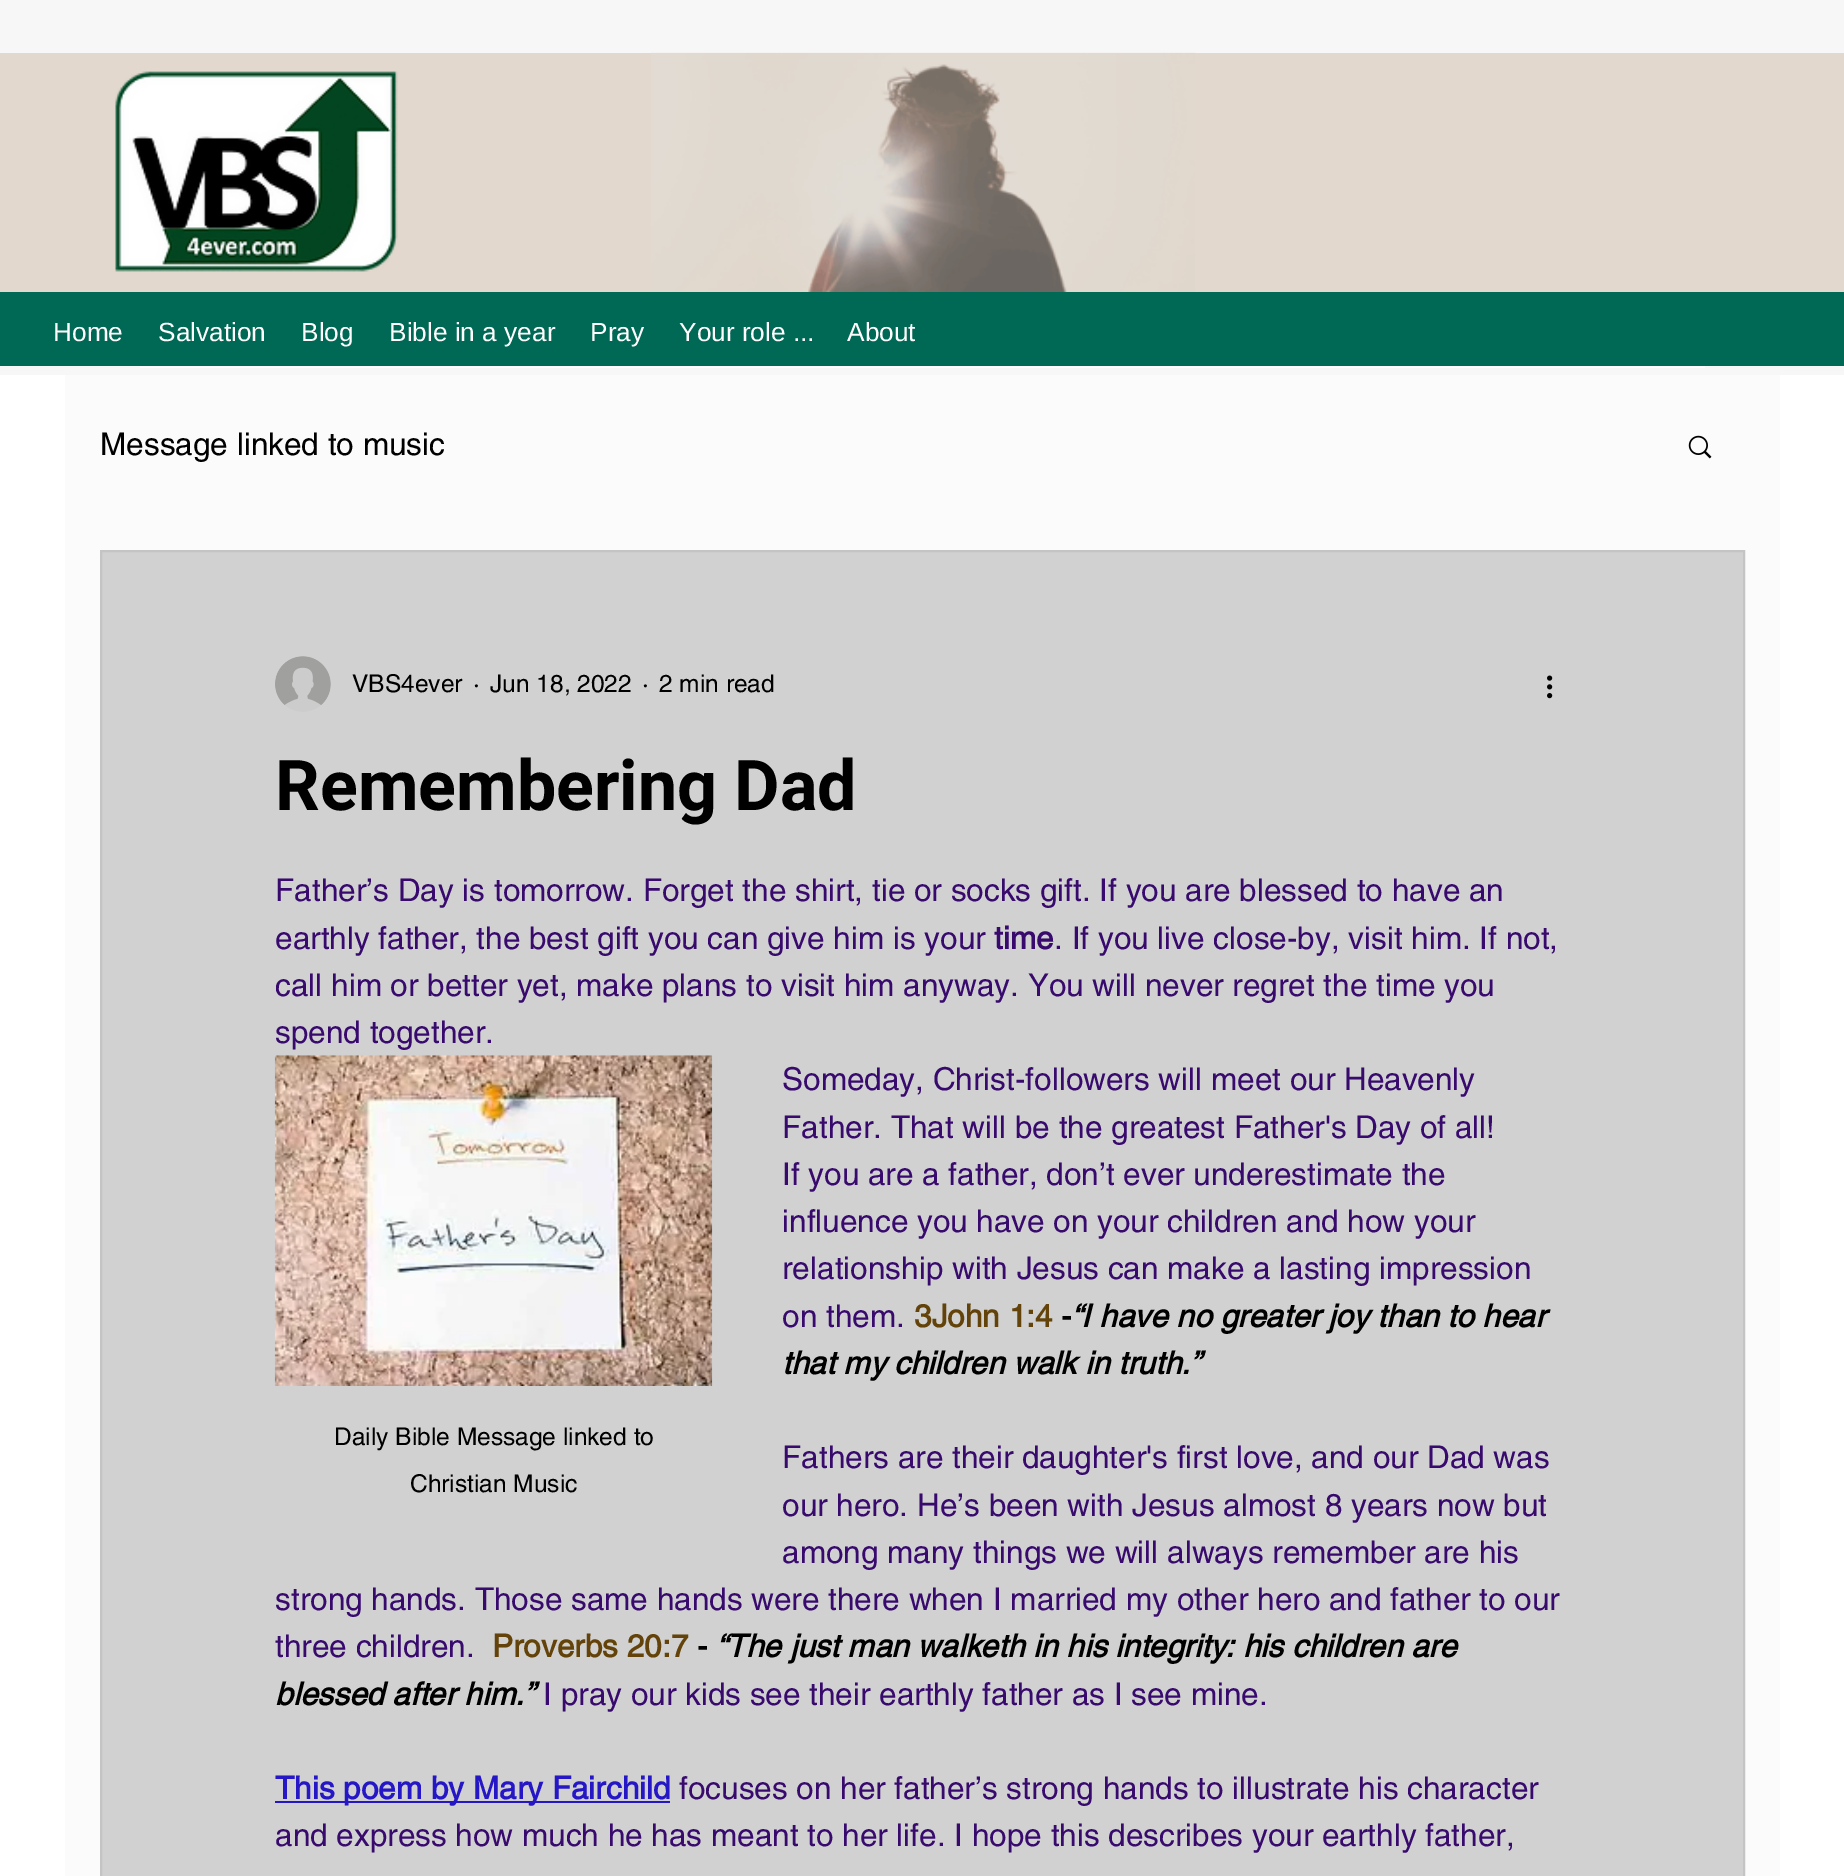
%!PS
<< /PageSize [1844 1876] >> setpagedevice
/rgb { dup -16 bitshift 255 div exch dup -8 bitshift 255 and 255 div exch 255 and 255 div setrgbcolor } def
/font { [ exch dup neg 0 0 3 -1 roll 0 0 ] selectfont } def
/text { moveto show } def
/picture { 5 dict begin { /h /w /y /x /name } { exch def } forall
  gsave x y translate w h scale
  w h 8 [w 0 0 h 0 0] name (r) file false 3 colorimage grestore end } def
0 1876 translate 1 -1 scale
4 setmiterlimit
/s1 { /LiberationSans-Regular 26.25 font 16#FFFFFF rgb } def
/s2 { /helvetica-Regular 31.5 font 16#000000 rgb } def
/s3 { /helvetica-Regular 24.5 font 16#000000 rgb } def
/s4 { /Roboto-Bold 70 font 16#000000 rgb } def
/s5 { /helvetica-Regular 31.5 font 16#380A6D rgb } def
/s6 { /helvetica-Bold 31.5 font 16#380A6D rgb } def
/s7 { /helvetica-Bold 31.5 font 16#634309 rgb } def
/s8 { /helvetica-Bold 31.5 font 16#000000 rgb } def
/s9 { /helvetica-BoldItalic 31.5 font 16#000000 rgb } def
/s10 { /helvetica-Bold 31.5 font 16#2517C6 rgb } def
16#FFFFFF rgb
0 0 1844 1876 rectfill
16#F7F7F7 rgb
0 0 1844 375 rectfill
16#E2D8CE rgb
0 53 1844 239 rectfill
(pic1.raw) 651 52 544 240 picture
(pic2.raw) 115 71 283 201 picture
16#006955 rgb
0 292 1844 74 rectfill
s1
(Home) 53 341 text
(Salvation) 158 341 text
(Blog) 301 341 text
(Bible in a year) 389 341 text
(Pray) 590 341 text
(Your role ...) 679 341 text
(About) 847 341 text
16#FEFEFE rgb
140 366 1565 2 rectfill
16#FBFBFB rgb
65 375 1715 1501 rectfill
s2
(Message linked to music) 100 455 text
(pic3.raw) 1688 435 24 24 picture
16#D1D1D1 rgb
101 551 moveto 1744 551 lineto 1744 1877 lineto 101 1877 lineto closepath gsave fill grestore
16#C4C4C4 rgb
2 setlinewidth
stroke
(pic4.raw) 275 656 56 56 picture
s3
(VBS4ever) 352 692 text
(·) 473 692 text
(Jun 18, 2022) 490 692 text
(·) 642 692 text
(2 min read) 659 692 text
(pic5.raw) 1547 675 6 24 picture
s4
(Remembering Dad) 275 810 text
s5
(Father’s Day is tomorrow. Forget the shirt, tie or socks gift. If you are blessed to have an) 275 901 text
(earthly father, the best gift you can give him is your) 275 949 text
s6
(time) 994 949 text
s5
(. If you live close-by, visit him. If not,) 1054 949 text
(call him or better yet, make plans to visit him anyway. You will never regret the time you) 275 996 text
(spend together.) 275 1043 text
(Someday, Christ-followers will meet our Heavenly) 782 1090 text
(Father. That will be the greatest Father's Day of all!) 782 1138 text
(If you are a father, don’t ever underestimate the) 782 1185 text
(influence you have on your children and how your) 782 1232 text
(relationship with Jesus can make a lasting impression) 782 1279 text
(on them.) 782 1327 text
s7
(3John 1:4) 914 1327 text
s8
(-) 1061 1327 text
s9
(“I have no greater joy than to hear) 1071 1327 text
(that my children walk in truth.”) 782 1374 text
(pic6.raw) 274 1055 439 331 picture
s3
(Daily Bible Message linked to) 334 1445 text
(Christian Music) 410 1492 text
s5
(Fathers are their daughter's first love, and our Dad was) 782 1468 text
(our hero. He’s been with Jesus almost 8 years now but) 782 1516 text
(among many things we will always remember are his) 782 1563 text
(strong hands. Those same hands were there when I married my other hero and father to our) 275 1610 text
(three children.) 275 1657 text
s7
(Proverbs 20:7) 492 1657 text
s8
(-) 697 1657 text
s9
(“The just man walketh in his integrity: his children are) 716 1657 text
(blessed after him.”) 275 1705 text
s5
(I pray our kids see their earthly father as I see mine.) 543 1705 text
16#2517C6 rgb
275 1801 395 2 rectfill
s10
(This poem by Mary Fairchild) 275 1799 text
s5
(focuses on her father’s strong hands to illustrate his character) 679 1799 text
(and express how much he has meant to her life. I hope this describes your earthly father,) 275 1846 text
showpage
